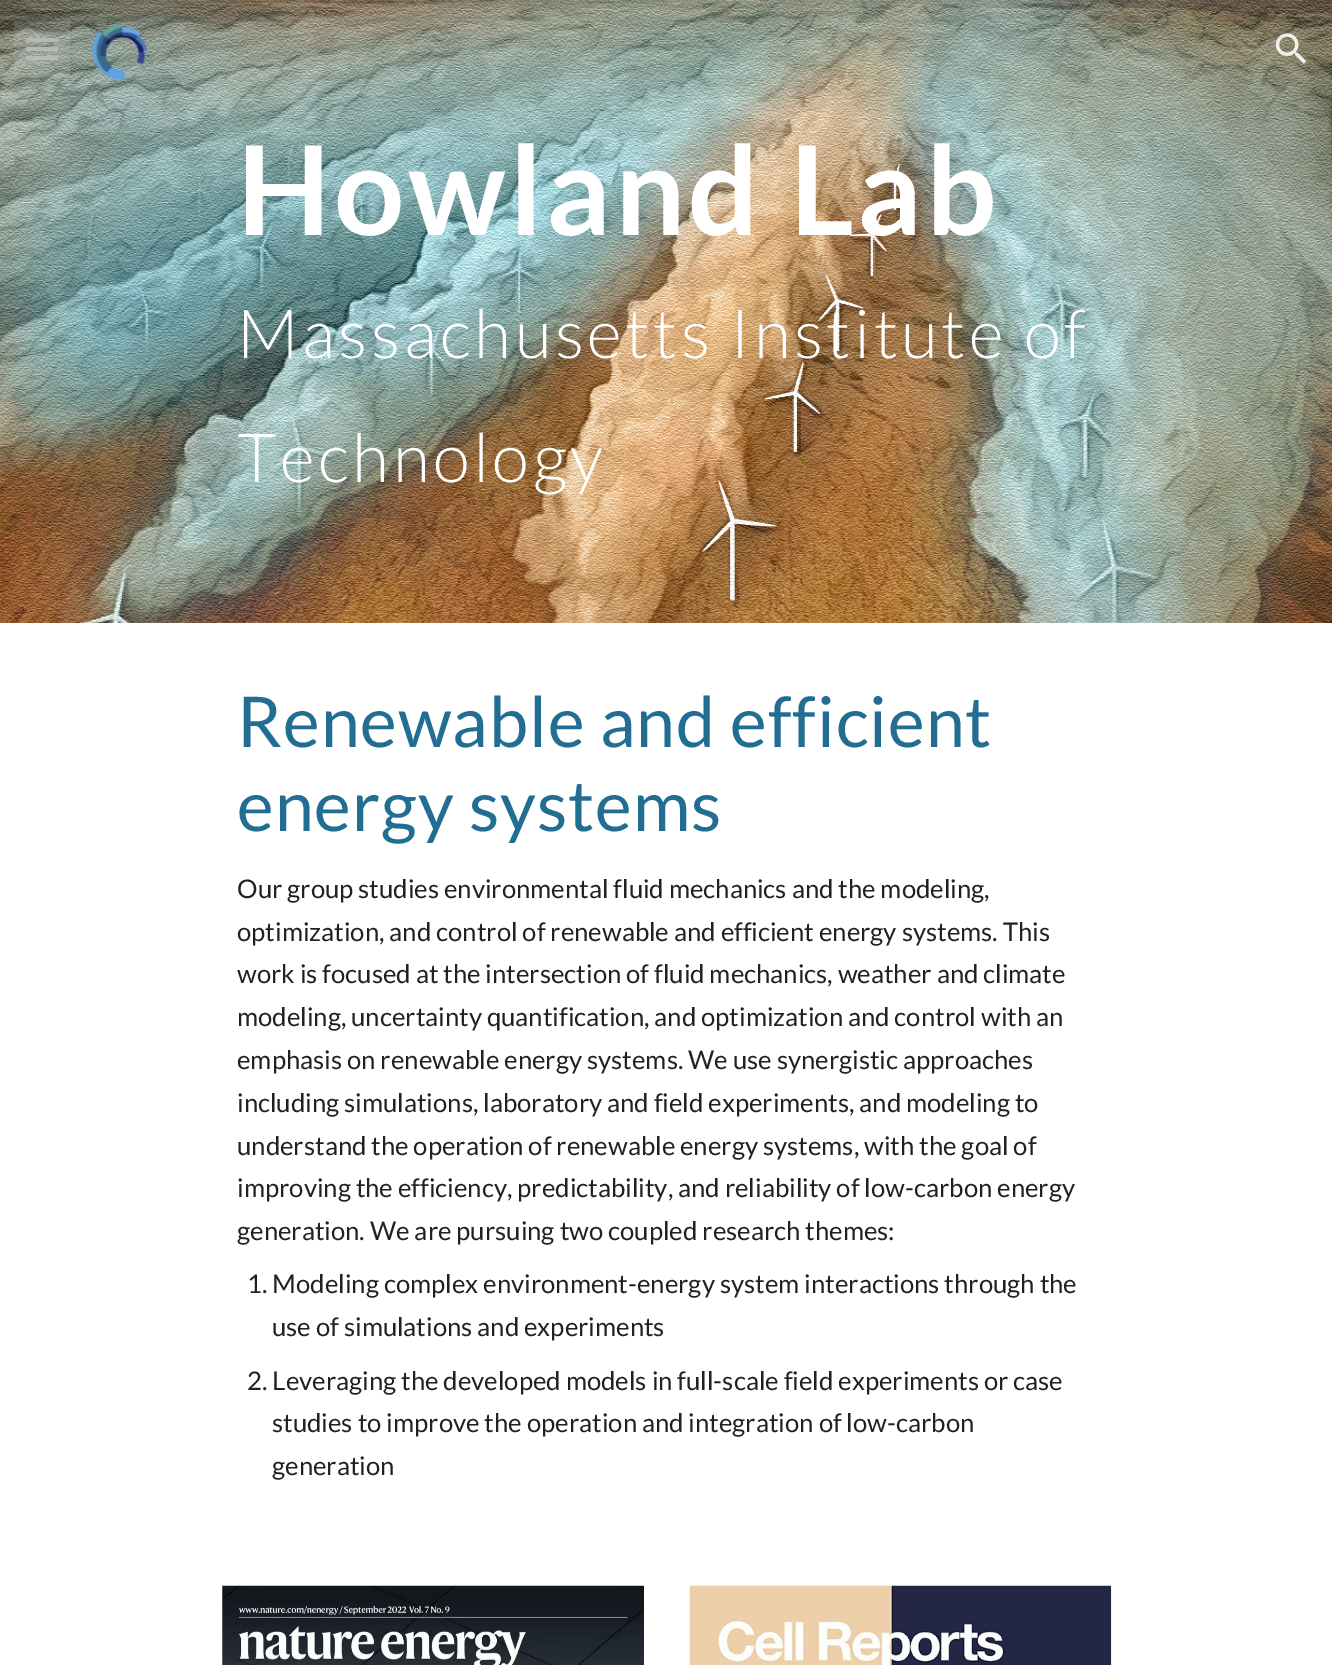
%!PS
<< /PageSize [1332 1665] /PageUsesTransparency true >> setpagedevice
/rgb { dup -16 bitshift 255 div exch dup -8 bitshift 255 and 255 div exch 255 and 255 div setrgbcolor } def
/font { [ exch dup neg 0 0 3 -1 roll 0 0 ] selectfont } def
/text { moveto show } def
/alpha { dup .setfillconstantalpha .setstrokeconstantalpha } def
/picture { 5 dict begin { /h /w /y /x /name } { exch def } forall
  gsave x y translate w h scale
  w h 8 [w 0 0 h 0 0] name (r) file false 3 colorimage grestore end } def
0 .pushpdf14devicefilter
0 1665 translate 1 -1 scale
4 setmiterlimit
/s1 { /Lato-Regular 25.7 font 16#212121 rgb } def
16#FFFFFF rgb
0 0 1332 1665 rectfill
(pic3.raw) 0 0 1332 623 picture
0.88 alpha
16#B2B2B2 rgb
26 38 32 4 rectfill
26 47 32 4 rectfill
26 56 32 4 rectfill
0.12 alpha
16#FFFFFF rgb
14 21 56 56 rectfill
1 alpha
(pic1.raw) 91 23 57 58 picture
(pic2.raw) 1275 33 32 31 picture
/Lato-Bold 123.75 font
237 235 moveto 3.5 0 (Howland Lab) ashow
/Lato-Light 67.7 font
237 358 moveto 3.5 0 (Massachusetts Institute of) ashow
237 482 moveto 3.5 0 (Technology) ashow
/Lato-Regular 70 font
16#226E93 rgb
237 747 moveto 0.9 0 (Renewable and efficient) ashow
237 831 moveto 0.9 0 (energy systems) ashow
s1
(Our group studies environmental fluid mechanics and the modeling,) 237 898 text
(optimization, and control of renewable and efficient energy systems. This) 237 941 text
(work is focused at the intersection of fluid mechanics, weather and climate) 237 983 text
(modeling, uncertainty quantification, and optimization and control with an) 237 1026 text
(emphasis on renewable energy systems. We use synergistic approaches) 237 1069 text
(including simulations, laboratory and field experiments, and modeling to) 237 1112 text
(understand the operation of renewable energy systems, with the goal of) 237 1155 text
(improving the efficiency, predictability, and reliability of low-carbon energy) 237 1197 text
(generation. We are pursuing two coupled research themes:) 237 1240 text
(1. Modeling complex environment-energy system interactions through the) 247 1293 text
(use of simulations and experiments) 272 1336 text
(2. Leveraging the developed models in full-scale field experiments or case) 247 1390 text
(studies to improve the operation and integration of low-carbon) 272 1432 text
(generation) 272 1475 text
(pic4.raw) 222 1585 422 80 picture
(pic5.raw) 689 1585 423 80 picture
.poppdf14devicefilter showpage
